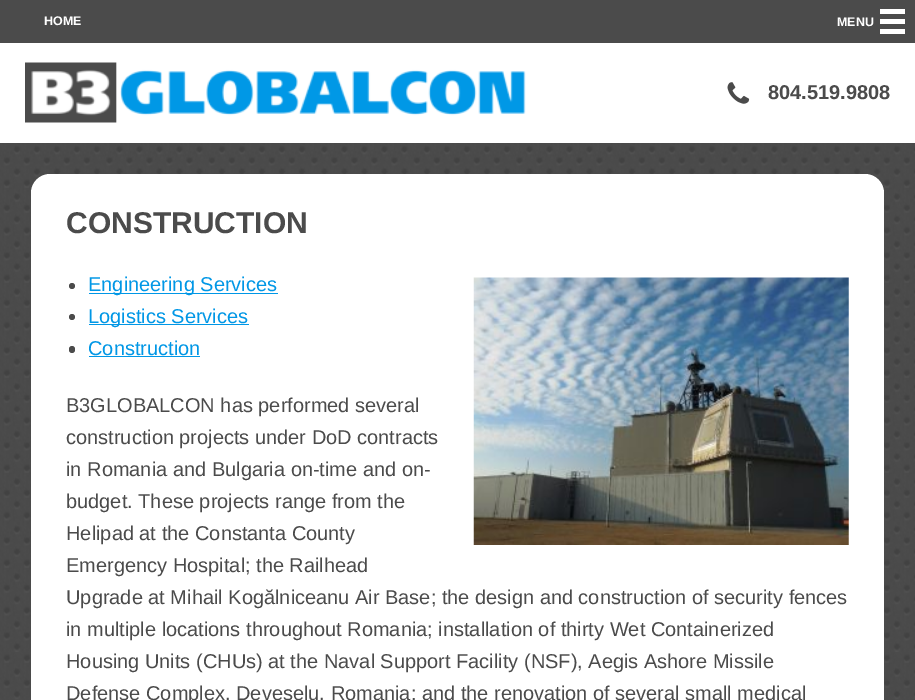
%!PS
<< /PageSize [915 700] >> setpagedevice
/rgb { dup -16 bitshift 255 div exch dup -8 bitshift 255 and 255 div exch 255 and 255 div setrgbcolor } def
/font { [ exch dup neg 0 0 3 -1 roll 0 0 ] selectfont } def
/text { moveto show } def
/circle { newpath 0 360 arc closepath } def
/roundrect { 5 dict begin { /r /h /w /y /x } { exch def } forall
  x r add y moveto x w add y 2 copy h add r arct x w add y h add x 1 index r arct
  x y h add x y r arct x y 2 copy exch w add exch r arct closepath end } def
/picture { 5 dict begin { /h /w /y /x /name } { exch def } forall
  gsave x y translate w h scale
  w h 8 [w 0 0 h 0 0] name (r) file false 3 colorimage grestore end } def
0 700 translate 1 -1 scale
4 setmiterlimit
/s1 { /LiberationSans-Bold 12.5 font 16#FFFFFF rgb } def
/s2 { /LiberationSans-Bold 20 font 16#4B4B4B rgb } def
/s3 { /LiberationSans-Bold 30 font 16#4B4B4B rgb } def
/s4 { /LiberationSans-Regular 20 font 16#0097E6 rgb } def
/s5 { /LiberationSans-Regular 20 font 16#4B4B4B rgb } def
16#FFFFFF rgb
0 0 915 700 rectfill
16#4B4B4B rgb
0 0 915 43 rectfill
s1
(HOME) 44 25 text
(MENU) 837 26 text
880 29 25 5 rectfill
880 19 25 5 rectfill
880 9 25 5 rectfill
(pic1.raw) 25 62 501 61 picture
(pic2.raw) 727 82 23 22 picture
s2
(804.519.9808) 768 99 text
(pic3.raw) 0 143 915 557 picture
16#FFFFFF rgb
31 174 853 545 19 roundrect fill
s3
(CONSTRUCTION) 66 233 text
72 286 3 circle fill
16#0097E6 rgb
89 293 189 1 rectfill
s4
(Engineering Services) 88 291 text
16#4B4B4B rgb
72 317 3 circle fill
16#0097E6 rgb
89 324 160 1 rectfill
(Logistics Services) 88 323 text
16#4B4B4B rgb
69 346 6 7 3 roundrect fill
s4
(Construction) 88 355 text
89 356 111 1 rectfill
(pic4.raw) 473 277 376 268 picture
s5
(B3GLOBALCON has performed several) 66 412 text
(construction projects under DoD contracts) 66 444 text
(in Romania and Bulgaria on-time and on-) 66 476 text
(budget. These projects range from the) 66 508 text
(Helipad at the Constanta County) 66 540 text
(Emergency Hospital; the Railhead) 66 572 text
(Upgrade at Mihail Kogălniceanu Air Base; the design and construction of security fences) 66 604 text
(in multiple locations throughout Romania; installation of thirty Wet Containerized) 66 636 text
(Housing Units \(CHUs\) at the Naval Support Facility \(NSF\), Aegis Ashore Missile) 66 668 text
(Defense Complex, Deveselu, Romania; and the renovation of several small medical) 66 700 text
showpage
